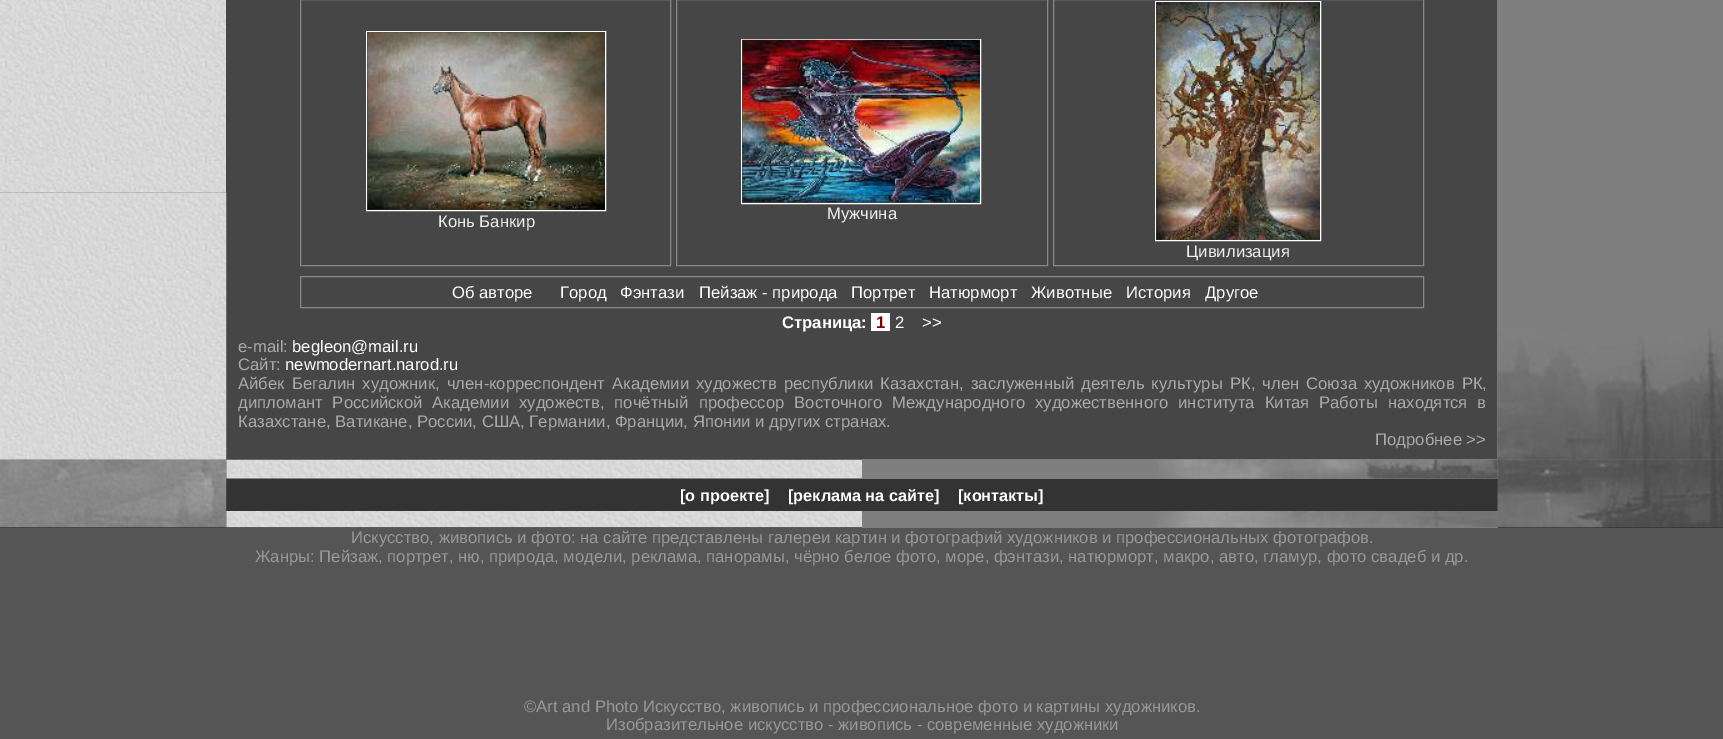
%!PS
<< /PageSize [1723 739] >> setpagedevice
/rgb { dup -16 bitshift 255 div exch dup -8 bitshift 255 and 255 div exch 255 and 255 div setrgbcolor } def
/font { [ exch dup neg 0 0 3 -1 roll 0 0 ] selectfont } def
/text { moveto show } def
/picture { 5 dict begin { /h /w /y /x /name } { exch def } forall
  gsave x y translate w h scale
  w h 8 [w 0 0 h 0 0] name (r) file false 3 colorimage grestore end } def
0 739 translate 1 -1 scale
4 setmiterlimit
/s1 { /LiberationSans-Regular 16.67 font 16#EEEEEE rgb } def
/s2 { /LiberationSans-Regular 16.67 font 16#FFFFFF rgb } def
/s3 { /LiberationSans-Bold 16.67 font 16#FFFFFF rgb } def
/s4 { /LiberationSans-Bold 16.67 font 16#800000 rgb } def
/s5 { /LiberationSans-Regular 16.67 font 16#AAAAAA rgb } def
/s6 { /LiberationSans-Bold 16.25 font 16#FFFFFF rgb } def
/s7 { /LiberationSans-Regular 16.67 font 16#999999 rgb } def
16#333333 rgb
0 0 1723 739 rectfill
(pic3.raw) 0 0 226 193 picture
16#464646 rgb
226 0 1271 460 rectfill
(pic1.raw) 0 192 227 268 picture
16#7F7F7F rgb
1497 0 226 460 rectfill
862 459 636 20 rectfill
(pic2.raw) 1497 328 226 132 picture
16#888888 rgb
300.5 -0.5 370 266 rectstroke
16#FFFFFF rgb
366.5 31.5 239 179 rectstroke
(pic4.raw) 367 32 238 178 picture
s1
(Конь Банкир) 438 227 text
16#888888 rgb
676.5 -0.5 371 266 rectstroke
16#FFFFFF rgb
741.5 39.5 239 164 rectstroke
(pic5.raw) 742 39 238 164 picture
s1
(Мужчина) 827 219 text
16#888888 rgb
1053.5 -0.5 370 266 rectstroke
16#FFFFFF rgb
1155.5 1.5 165 239 rectstroke
(pic6.raw) 1156 2 164 238 picture
s1
(Цивилизация) 1186 257 text
16#888888 rgb
300.5 276.5 1123 31 rectstroke
s2
(Об авторе) 452 298 text
(Город) 560 298 text
(Фэнтази) 620 298 text
(Пейзаж - природа) 699 298 text
(Портрет) 851 298 text
(Натюрморт) 929 298 text
(Животные) 1031 298 text
(История) 1126 298 text
(Другое) 1205 298 text
s3
(Страница:) 782 328 text
871 313 19 18 rectfill
s4
(1) 876 328 text
s2
(2) 895 328 text
(>>) 922 328 text
s5
(e-mail:) 238 352 text
s2
(begleon@mail.ru) 292 352 text
s5
(Сайт:) 238 370 text
s2
(newmodernart.narod.ru) 285 370 text
16#AAAAAA rgb
238 389 moveto 2.4 0 32 (Айбек Бегалин художник, член-корреспондент Академии художеств республики Казахстан, заслуженный деятель культуры РК, член Союза художников РК,) widthshow
238 408 moveto 5.25 0 32 (дипломант Российской Академии художеств, почётный профессор Восточного Международного художественного института Китая) widthshow
1319 408 moveto 5.25 0 32 (Работы находятся в) widthshow
(Казахстане, Ватикане, России, США, Германии, Франции, Японии и других странах.) 238 427 text
(Подробнее >>) 1375 445 text
(pic8.raw) 226 459 636 20 picture
(pic10.raw) 226 511 636 17 picture
(pic7.raw) 0 459 227 69 picture
(pic9.raw) 1158 459 340 20 picture
s6
([о проекте]) 680 501 text
([реклама на сайте]) 788 501 text
([контакты]) 958 501 text
16#7F7F7F rgb
862 511 636 17 rectfill
(pic11.raw) 1156 511 342 17 picture
(pic12.raw) 1497 459 226 69 picture
16#555555 rgb
0 528 1723 43 rectfill
s7
(Искусство, живопись и фото: на сайте представлены галереи картин и фотографий художников и профессиональных фотографов.) 351 543 text
(Жанры: Пейзаж, портрет, ню, природа, модели, реклама, панорамы, чёрно белое фото, море, фэнтази, натюрморт, макро, авто, гламур, фото свадеб и др.) 255 562 text
16#555555 rgb
0 571 1723 168 rectfill
s7
(©Art and Photo Искусство, живопись и профессиональное фото и картины художников.) 524 712 text
(Изобразительное искусство - живопись - современные художники) 606 730 text
showpage
